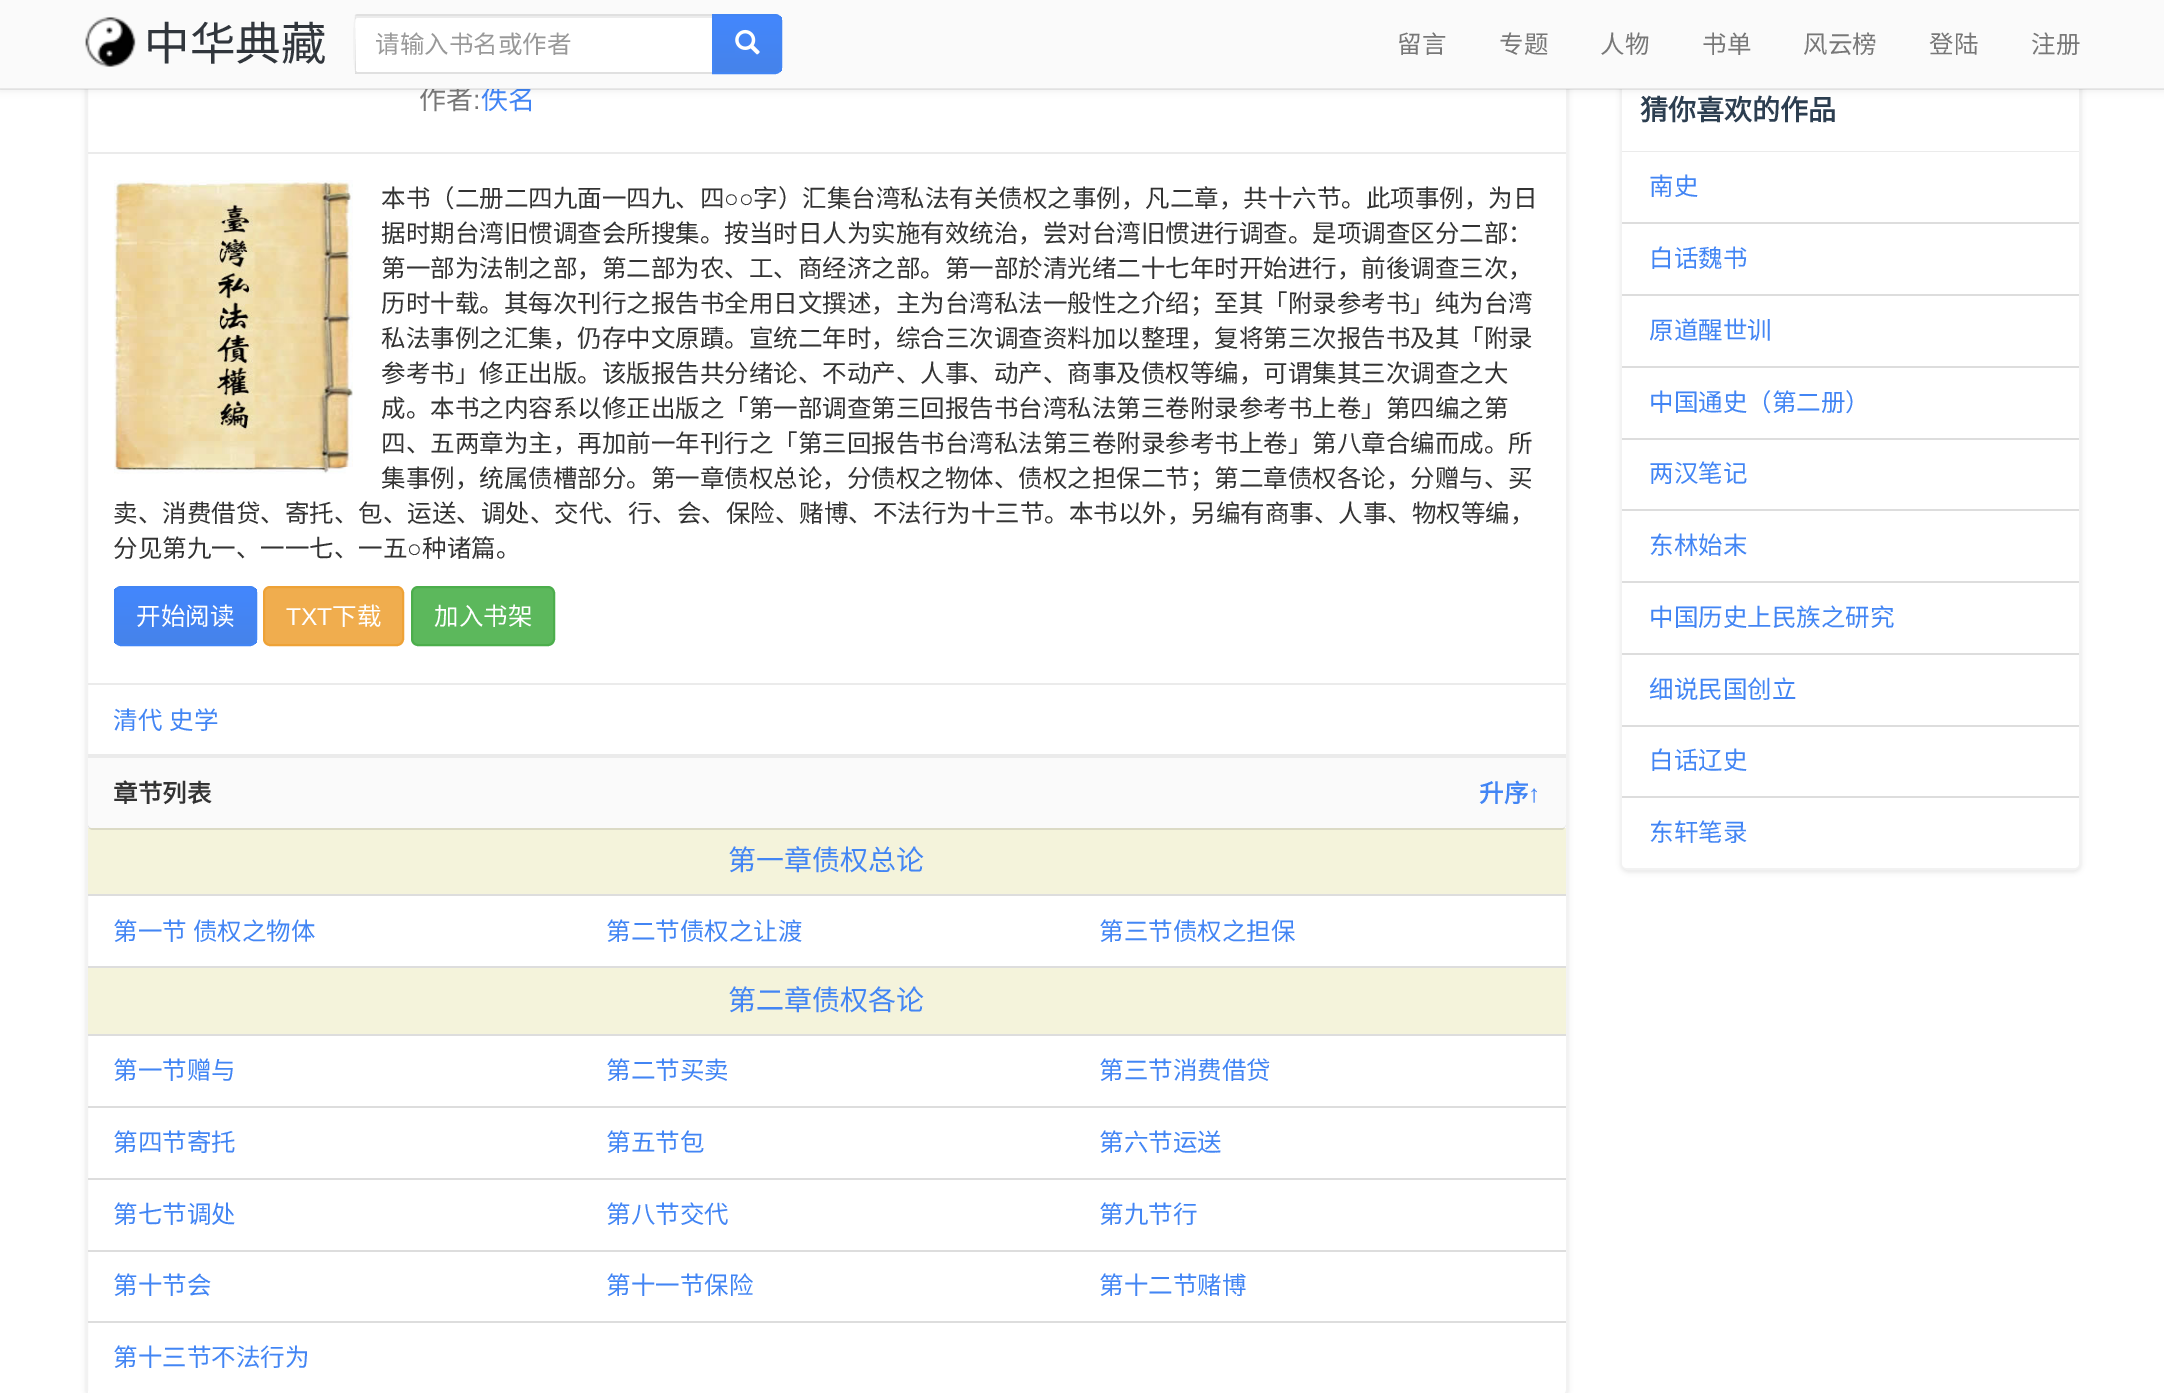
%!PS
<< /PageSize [2164 1393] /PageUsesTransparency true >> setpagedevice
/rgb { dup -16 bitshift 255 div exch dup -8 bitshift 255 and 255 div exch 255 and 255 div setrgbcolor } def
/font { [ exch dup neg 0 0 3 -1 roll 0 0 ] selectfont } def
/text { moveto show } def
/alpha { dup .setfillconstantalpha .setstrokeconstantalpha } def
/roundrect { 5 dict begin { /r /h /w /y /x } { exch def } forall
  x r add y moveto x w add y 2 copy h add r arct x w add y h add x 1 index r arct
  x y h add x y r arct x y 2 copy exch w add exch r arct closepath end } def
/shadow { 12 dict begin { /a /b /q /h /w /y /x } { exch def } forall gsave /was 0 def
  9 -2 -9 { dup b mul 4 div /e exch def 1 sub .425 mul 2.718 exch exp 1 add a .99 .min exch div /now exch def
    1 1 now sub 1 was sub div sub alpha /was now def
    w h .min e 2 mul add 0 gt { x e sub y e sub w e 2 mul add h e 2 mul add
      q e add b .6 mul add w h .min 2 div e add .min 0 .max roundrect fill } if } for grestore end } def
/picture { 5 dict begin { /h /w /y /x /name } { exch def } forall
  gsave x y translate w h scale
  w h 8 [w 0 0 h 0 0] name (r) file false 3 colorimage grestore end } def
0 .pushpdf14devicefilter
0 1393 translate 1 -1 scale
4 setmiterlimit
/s1 { /NotoSansCJKSC-Regular 27 font 16#777777 rgb } def
/s2 { /NotoSansCJKSC-Regular 27 font 16#4285F4 rgb } def
/s3 { /NotoSansCJKSC-Regular 45.5 font 16#31363C rgb } def
/s4 { /NotoSansCJKSC-Regular 24.5 font 16#999999 rgb } def
/s5 { /NotoSansCJKSC-Regular 24.5 font 16#777777 rgb } def
/s6 { /LiberationSans-Regular 27 font 16#777777 rgb } def
/s7 { /NotoSansCJKSC-Regular 24.5 font 16#333333 rgb } def
/s8 { /LiberationSans-Regular 24.5 font 16#333333 rgb } def
/s9 { /NotoSansCJKSC-Regular 24.5 font 16#FFFFFF rgb } def
/s10 { /LiberationSans-Regular 24.5 font 16#FFFFFF rgb } def
/s11 { /NotoSansCJKSC-Regular 24.5 font 16#4285F4 rgb } def
/s12 { /NotoSansCJKSC-Bold 24.5 font 16#333333 rgb } def
/s13 { /NotoSansCJKSC-Bold 24.5 font 16#4285F4 rgb } def
/s14 { /LiberationSans-Bold 24.5 font 16#4285F4 rgb } def
/s15 { /NotoSansCJKSC-Regular 28 font 16#4285F4 rgb } def
/s16 { /NotoSansCJKSC-Bold 28 font 16#2C3E50 rgb } def
16#FFFFFF rgb
0 0 2164 1393 rectfill
16#000000 rgb
86 -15 1482 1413 7 2.5 0.1 shadow
16#FFFFFF rgb
87 -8 1480 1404 6 roundrect gsave fill grestore
16#F2F2F2 rgb
2 setlinewidth
stroke
16#000000 rgb
1621 75 460 797 7 2.5 0.1 shadow
16#F2F2F2 rgb
1622 75 458 794 6 roundrect stroke
16#FFFFFF rgb
1622 89 457 62 rectfill
16#000000 rgb
0 0 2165 89 0 4.5 0.1 shadow
s1
(作者) 419 109 text
s2
(佚名) 481 109 text
16#FAFAFA rgb
0 0 2164 89 rectfill
0.07 alpha
16#000000 rgb
0 88 2164 2 rectfill
1 alpha
(pic1.raw) 85 17 51 50 picture
s3
(中华典藏) 144 60 text
16#FFFFFF rgb
358 14 moveto 714 14 lineto 714 74 lineto 358 74 lineto 356 74 354 72 354 70 curveto 354 18 lineto 354 16 356 14 358 14 curveto closepath fill
16#ECECEC rgb
357 18 moveto 714 18 lineto 714 16 lineto 356 16 lineto 355 17 355 19 355 20 curveto 355 19 356 18 357 18 curveto closepath 356 72 moveto 355 28 lineto 355 70 lineto closepath eofill
16#E0E0E0 rgb
357 14 moveto 714 14 lineto 714 16 lineto 357 16 lineto 356 16 lineto 355 15 lineto closepath fill
0.12 alpha
16#000000 rgb
714 74 moveto 355 74 lineto 355 72 lineto 356 71 lineto 357 72 lineto 714 72 lineto closepath fill
0.05 alpha
356 16 moveto 354 19 356 70 356 71 curveto 355 72 lineto 353 70 353 17 355 15 curveto closepath fill
1 alpha
s4
(请输入书名或作者) 375 53 text
gsave
712 14 moveto 775 14 lineto 779 14 782 17 782 21 curveto 782 67 lineto 782 71 779 74 775 74 curveto 712 74 lineto closepath clip newpath
gsave 714 16 moveto 782 16 lineto 782 72 lineto 714 72 lineto closepath clip newpath
<< /ShadingType 2 /ColorSpace /DeviceRGB /Coords [747 16 747 72] /Extend [true true] /Function << /FunctionType 2 /Domain [0 1] /C0 [0.263 0.529 0.992] /C1 [0.275 0.514 0.918] /N 1 >> >> shfill grestore
grestore
16#4285F4 rgb
713 15 moveto 775 15 lineto 778.5 15 781 17.5 781 21 curveto 781 67 lineto 781 70.5 778.5 73 775 73 curveto 713 73 lineto closepath stroke
(pic2.raw) 735 29 25 26 picture
s5
(留言) 1397 53 text
(专题) 1499 53 text
(人物) 1600 53 text
(书单) 1702 53 text
(风云榜) 1803 53 text
(登陆) 1929 53 text
(注册) 2031 53 text
16#EBEBEB rgb
88 152 1478 2 rectfill
s6
(:) 473 109 text
(pic3.raw) 114 180 239 294 picture
s7
(本书（二册二四九面一四九、四) 381 207 text
s8
(○○) 724 207 text
s7
(字）汇集台湾私法有关债权之事例，凡二章，共十六节。此项事例，为日) 753 207 text
(据时期台湾旧惯调查会所搜集。按当时日人为实施有效统治，尝对台湾旧惯进行调查。是项调查区分二部：) 381 242 text
(第一部为法制之部，第二部为农、工、商经济之部。第一部於清光绪二十七年时开始进行，前後调查三次，) 381 277 text
(历时十载。其每次刊行之报告书全用日文撰述，主为台湾私法一般性之介绍；至其「附录参考书」纯为台湾) 381 312 text
(私法事例之汇集，仍存中文原蹟。宣统二年时，综合三次调查资料加以整理，复将第三次报告书及其「附录) 381 347 text
(参考书」修正出版。该版报告共分绪论、不动产、人事、动产、商事及债权等编，可谓集其三次调查之大) 381 382 text
(成。本书之内容系以修正出版之「第一部调查第三回报告书台湾私法第三卷附录参考书上卷」第四编之第) 381 417 text
(四、五两章为主，再加前一年刊行之「第三回报告书台湾私法第三卷附录参考书上卷」第八章合编而成。所) 381 452 text
(集事例，统属债槽部分。第一章债权总论，分债权之物体、债权之担保二节；第二章债权各论，分赠与、买) 381 487 text
(卖、消费借贷、寄托、包、运送、调处、交代、行、会、保险、赌博、不法行为十三节。本书以外，另编有商事、人事、物权等编，) 113 522 text
(分见第九一、一一七、一五) 113 557 text
s8
(○) 407 557 text
s7
(种诸篇。) 422 557 text
gsave
114 586 143 60 7 roundrect clip newpath
gsave 114 588 moveto 257 588 lineto 257 644 lineto 114 644 lineto closepath clip newpath
<< /ShadingType 2 /ColorSpace /DeviceRGB /Coords [186 588 186 644] /Extend [true true] /Function << /FunctionType 2 /Domain [0 1] /C0 [0.263 0.529 0.992] /C1 [0.275 0.514 0.918] /N 1 >> >> shfill grestore
grestore
16#4285F4 rgb
115 587 141 58 6 roundrect stroke
s9
(开始阅读) 136 625 text
16#F0AD4E rgb
264 587 139 58 6 roundrect gsave fill grestore
16#EEA236 rgb
stroke
s10
(TXT) 286 625 text
s9
(下载) 332 625 text
16#5CB85C rgb
412 587 142 58 6 roundrect gsave fill grestore
16#4CAE4C rgb
stroke
s9
(加入书架) 434 625 text
16#EBEBEB rgb
88 683 1478 2 rectfill
88 754 1478 2 rectfill
s11
(清代) 113 729 text
(史学) 169 729 text
16#F4F3DB rgb
88 828 1478 66 rectfill
0.1 alpha
16#000000 rgb
88 825 moveto 88 828 90 830 93 830 curveto 1561 830 lineto 1564 830 1566 827 1566 824 curveto 1565 826 1563 828 1561 828 curveto 93 828 lineto 91 828 89 827 88 825 curveto closepath fill
1 alpha
16#FAFAFA rgb
88 756 moveto 1566 756 lineto 1566 823 lineto 1566 826 1564 828 1561 828 curveto 93 828 lineto 90 828 88 826 88 823 curveto closepath fill
16#EBEBEB rgb
88 756 1478 2 rectfill
s12
(章节列表) 113 802 text
s13
(升序) 1479 802 text
s14
(↑) 1528 802 text
s15
(第一章债权总论) 728 870 text
16#DDDDDD rgb
88 894 1478 2 rectfill
88 966 1478 2 rectfill
/NotoSansCJKSC-Regular 24.5 font
16#4285F4 rgb
113 940 moveto 1 0 32 (第一节 债权之物体) widthshow
(第二节债权之让渡) 606 940 text
(第三节债权之担保) 1099 940 text
16#F4F3DB rgb
88 968 1478 66 rectfill
s15
(第二章债权各论) 728 1010 text
16#DDDDDD rgb
88 1034 1478 2 rectfill
88 1106 1478 2 rectfill
s11
(第一节赠与) 113 1079 text
(第二节买卖) 606 1079 text
(第三节消费借贷) 1099 1079 text
16#DDDDDD rgb
88 1178 1478 2 rectfill
s11
(第四节寄托) 113 1151 text
(第五节包) 606 1151 text
(第六节运送) 1099 1151 text
(第七节调处) 113 1223 text
(第八节交代) 606 1223 text
(第九节行) 1099 1223 text
16#DDDDDD rgb
88 1250 1478 2 rectfill
88 1321 1478 2 rectfill
s11
(第十节会) 113 1294 text
(第十一节保险) 606 1294 text
(第十二节赌博) 1099 1294 text
16#FFFFFF rgb
88 1391 1 2 rectfill
s11
(第十三节不法行为) 113 1366 text
16#EBEBEB rgb
1622 151 457 1 rectfill
s16
(猜你喜欢的作品) 1640 120 text
16#FFFFFF rgb
1622 152 457 70 rectfill
16#DDDDDD rgb
1622 222 457 2 rectfill
s11
(南史) 1649 195 text
16#FFFFFF rgb
1622 224 457 70 rectfill
16#DDDDDD rgb
1622 294 457 2 rectfill
s11
(白话魏书) 1649 267 text
16#FFFFFF rgb
1622 296 457 70 rectfill
16#DDDDDD rgb
1622 366 457 2 rectfill
s11
(原道醒世训) 1649 339 text
16#FFFFFF rgb
1622 368 457 70 rectfill
s11
(中国通史（第二册）) 1649 411 text
16#FFFFFF rgb
1622 440 457 69 rectfill
16#DDDDDD rgb
1622 438 457 2 rectfill
1622 509 457 2 rectfill
s11
(两汉笔记) 1649 482 text
16#FFFFFF rgb
1622 511 457 70 rectfill
16#DDDDDD rgb
1622 581 457 2 rectfill
s11
(东林始末) 1649 554 text
16#FFFFFF rgb
1622 583 457 70 rectfill
16#DDDDDD rgb
1622 653 457 2 rectfill
s11
(中国历史上民族之研究) 1649 626 text
16#FFFFFF rgb
1622 655 457 70 rectfill
s11
(细说民国创立) 1649 698 text
16#FFFFFF rgb
1622 727 457 69 rectfill
16#DDDDDD rgb
1622 725 457 2 rectfill
s11
(白话辽史) 1649 769 text
16#FFFFFF rgb
1622 796 moveto 2079 796 lineto 2079 863 lineto 2079 866 2077 868 2074 868 curveto 1627 868 lineto 1624 868 1622 866 1622 863 curveto closepath fill
16#DDDDDD rgb
1622 796 457 2 rectfill
s11
(东轩笔录) 1649 841 text
.poppdf14devicefilter showpage
